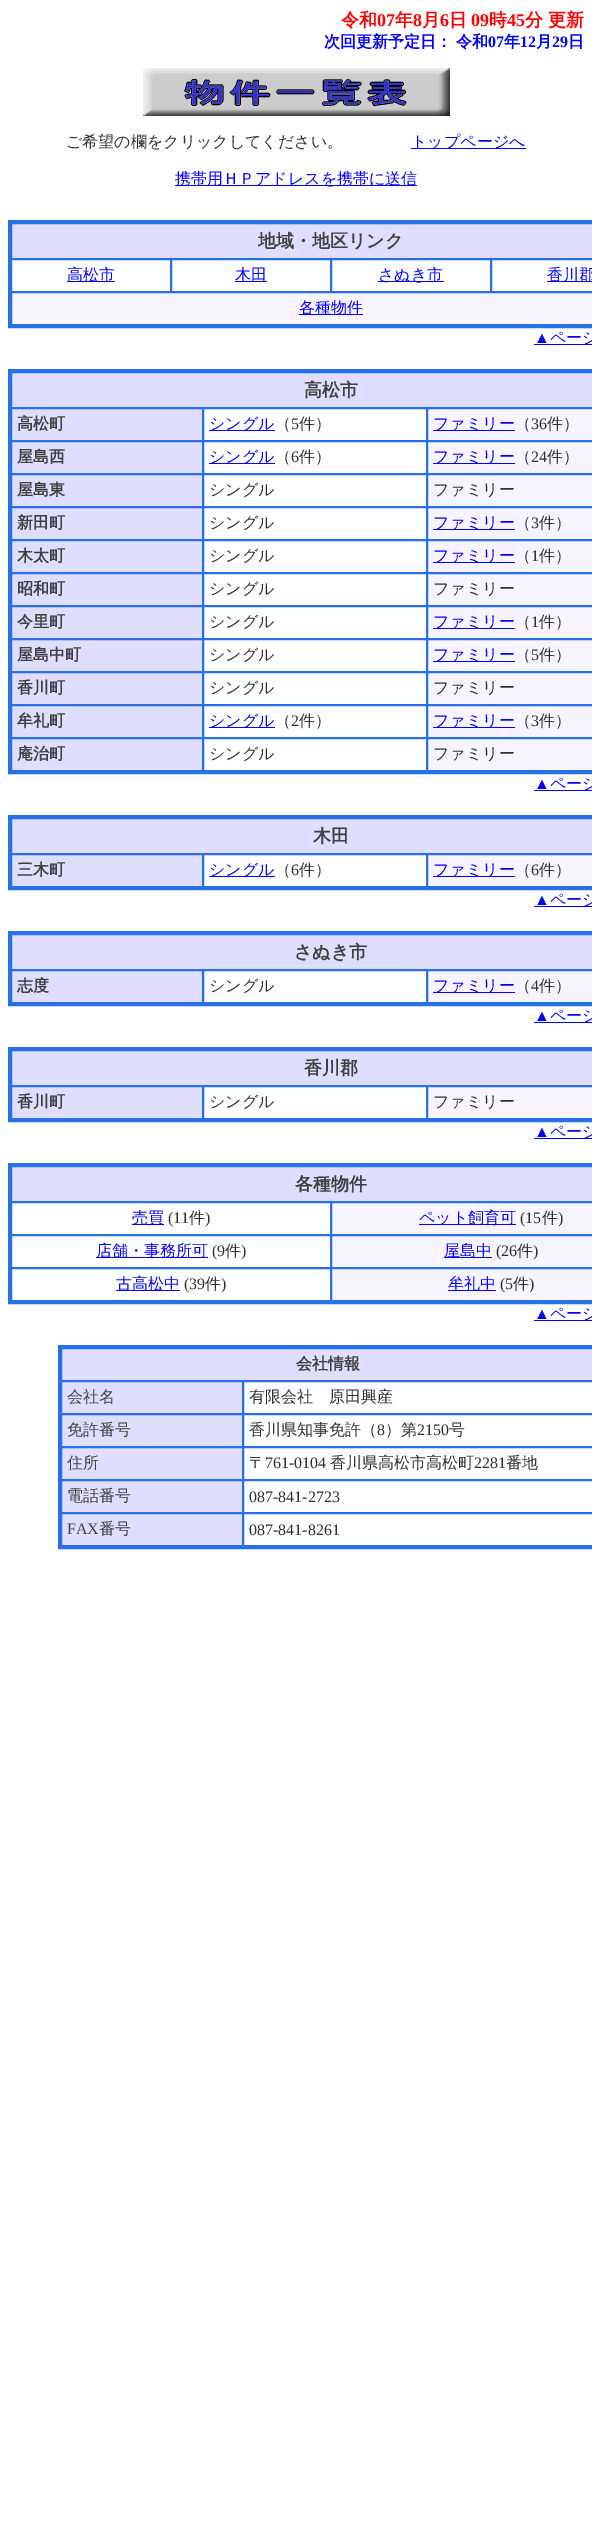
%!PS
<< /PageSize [592 2541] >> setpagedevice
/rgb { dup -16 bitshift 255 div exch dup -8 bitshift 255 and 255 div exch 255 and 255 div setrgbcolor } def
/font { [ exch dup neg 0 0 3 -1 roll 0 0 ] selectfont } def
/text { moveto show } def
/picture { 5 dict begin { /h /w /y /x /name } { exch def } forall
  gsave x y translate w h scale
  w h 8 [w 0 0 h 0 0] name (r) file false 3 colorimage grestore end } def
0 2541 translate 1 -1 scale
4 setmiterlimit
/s1 { /WenQuanYiZenHei-Bold 18 font 16#FF0000 rgb } def
/s2 { /LiberationSerif-Bold 18 font 16#FF0000 rgb } def
/s3 { /WenQuanYiZenHei-Bold 16 font 16#0000FF rgb } def
/s4 { /LiberationSerif-Bold 16 font 16#0000FF rgb } def
/s5 { /WenQuanYiZenHei-Medium 16 font 16#2F2F2F rgb } def
/s6 { /WenQuanYiZenHei-Medium 16 font 16#0000FF rgb } def
/s7 { /WenQuanYiZenHei-Bold 18 font 16#3F3F3F rgb } def
/s8 { /LiberationSerif-Regular 16 font 16#0000FF rgb } def
/s9 { /WenQuanYiZenHei-Bold 16 font 16#3F3F3F rgb } def
/s10 { /LiberationSerif-Regular 16 font 16#2F2F2F rgb } def
/s11 { /WenQuanYiZenHei-Medium 16 font 16#3F3F3F rgb } def
/s12 { /LiberationSerif-Regular 16 font 16#3F3F3F rgb } def
16#FFFFFF rgb
0 0 592 2541 rectfill
s1
(令和) 341 26 text
s2
(07) 377 26 text
s1
(年) 395 26 text
s2
(8) 413 26 text
s1
(月) 422 26 text
s2
(6) 440 26 text
s1
(日) 449 26 text
s2
(09) 471 26 text
s1
(時) 489 26 text
s2
(45) 507 26 text
s1
(分 更新) 525 26 text
s3
(次回更新予定日：) 324 47 text
(令和) 456 47 text
s4
(07) 488 47 text
s3
(年) 504 47 text
s4
(12) 520 47 text
s3
(月) 536 47 text
s4
(29) 552 47 text
s3
(日) 568 47 text
(pic1.raw) 143 68 307 48 picture
s5
(ご希望の欄をクリックしてください。) 66 147 text
16#0000FF rgb
411 148 115 1 rectfill
(トップページへ) 411 147 text
175 185 242 1 rectfill
(携帯用ＨＰアドレスを携帯に送信) 175 184 text
16#2870E6 rgb
3 setlinewidth
9.5 221.5 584 105 rectstroke
16#DFDEFE rgb
11.5 223.5 moveto 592.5 223.5 lineto 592.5 258.5 lineto 11.5 258.5 lineto closepath gsave fill grestore
16#2870E6 rgb
1 setlinewidth
stroke
s7
(地域・地区リンク) 258 247 text
16#2870E6 rgb
11.5 259.5 159 32 rectstroke
16#0000FF rgb
67 281 48 1 rectfill
s6
(高松市) 67 280 text
16#2870E6 rgb
171.5 259.5 159 32 rectstroke
16#0000FF rgb
235 281 32 1 rectfill
(木田) 235 280 text
16#2870E6 rgb
331.5 259.5 159 32 rectstroke
16#0000FF rgb
378 281 66 1 rectfill
(さぬき市) 378 280 text
16#2870E6 rgb
491.5 259.5 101 32 rectstroke
16#0000FF rgb
547 281 45 1 rectfill
(香川郡) 547 280 text
16#F7F4FF rgb
11.5 292.5 moveto 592.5 292.5 lineto 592.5 324.5 lineto 11.5 324.5 lineto closepath gsave fill grestore
16#2870E6 rgb
stroke
16#0000FF rgb
299 314 64 1 rectfill
(各種物件) 299 313 text
s8
(▲) 534 343 text
534 344 58 1 rectfill
s6
(ページ) 550 343 text
16#2870E6 rgb
3 setlinewidth
9.5 370.5 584 402 rectstroke
16#DFDEFE rgb
11.5 372.5 moveto 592.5 372.5 lineto 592.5 407.5 lineto 11.5 407.5 lineto closepath gsave fill grestore
16#2870E6 rgb
1 setlinewidth
stroke
s7
(高松市) 304 396 text
16#DFDEFE rgb
11.5 408.5 moveto 202.5 408.5 lineto 202.5 440.5 lineto 11.5 440.5 lineto closepath gsave fill grestore
16#2870E6 rgb
stroke
s9
(高松町) 17 429 text
16#2870E6 rgb
203.5 408.5 223 32 rectstroke
16#0000FF rgb
209 430 66 1 rectfill
s6
(シングル) 209 429 text
s5
(（) 275 429 text
s10
(5) 291 429 text
s5
(件）) 299 429 text
16#F7F4FF rgb
427.5 408.5 moveto 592.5 408.5 lineto 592.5 440.5 lineto 427.5 440.5 lineto closepath gsave fill grestore
16#2870E6 rgb
stroke
16#0000FF rgb
433 430 82 1 rectfill
(ファミリー) 433 429 text
s5
(（) 515 429 text
s10
(36) 531 429 text
s5
(件）) 547 429 text
16#DFDEFE rgb
11.5 441.5 moveto 202.5 441.5 lineto 202.5 473.5 lineto 11.5 473.5 lineto closepath gsave fill grestore
16#2870E6 rgb
stroke
s9
(屋島西) 17 462 text
16#2870E6 rgb
203.5 441.5 223 32 rectstroke
16#0000FF rgb
209 463 66 1 rectfill
s6
(シングル) 209 462 text
s5
(（) 275 462 text
s10
(6) 291 462 text
s5
(件）) 299 462 text
16#F7F4FF rgb
427.5 441.5 moveto 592.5 441.5 lineto 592.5 473.5 lineto 427.5 473.5 lineto closepath gsave fill grestore
16#2870E6 rgb
stroke
16#0000FF rgb
433 463 82 1 rectfill
(ファミリー) 433 462 text
s5
(（) 515 462 text
s10
(24) 531 462 text
s5
(件）) 547 462 text
16#DFDEFE rgb
11.5 474.5 moveto 202.5 474.5 lineto 202.5 506.5 lineto 11.5 506.5 lineto closepath gsave fill grestore
16#2870E6 rgb
stroke
s9
(屋島東) 17 495 text
16#2870E6 rgb
203.5 474.5 223 32 rectstroke
s5
(シングル) 209 495 text
16#F7F4FF rgb
427.5 474.5 moveto 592.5 474.5 lineto 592.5 506.5 lineto 427.5 506.5 lineto closepath gsave fill grestore
16#2870E6 rgb
stroke
s5
(ファミリー) 433 495 text
16#DFDEFE rgb
11.5 507.5 moveto 202.5 507.5 lineto 202.5 539.5 lineto 11.5 539.5 lineto closepath gsave fill grestore
16#2870E6 rgb
stroke
s9
(新田町) 17 528 text
16#2870E6 rgb
203.5 507.5 223 32 rectstroke
s5
(シングル) 209 528 text
16#F7F4FF rgb
427.5 507.5 moveto 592.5 507.5 lineto 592.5 539.5 lineto 427.5 539.5 lineto closepath gsave fill grestore
16#2870E6 rgb
stroke
16#0000FF rgb
433 529 82 1 rectfill
(ファミリー) 433 528 text
s5
(（) 515 528 text
s10
(3) 531 528 text
s5
(件）) 539 528 text
16#DFDEFE rgb
11.5 540.5 moveto 202.5 540.5 lineto 202.5 572.5 lineto 11.5 572.5 lineto closepath gsave fill grestore
16#2870E6 rgb
stroke
s9
(木太町) 17 561 text
16#2870E6 rgb
203.5 540.5 223 32 rectstroke
s5
(シングル) 209 561 text
16#F7F4FF rgb
427.5 540.5 moveto 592.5 540.5 lineto 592.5 572.5 lineto 427.5 572.5 lineto closepath gsave fill grestore
16#2870E6 rgb
stroke
16#0000FF rgb
433 562 82 1 rectfill
(ファミリー) 433 561 text
s5
(（) 515 561 text
s10
(1) 531 561 text
s5
(件）) 539 561 text
16#DFDEFE rgb
11.5 573.5 moveto 202.5 573.5 lineto 202.5 605.5 lineto 11.5 605.5 lineto closepath gsave fill grestore
16#2870E6 rgb
stroke
s9
(昭和町) 17 594 text
16#2870E6 rgb
203.5 573.5 223 32 rectstroke
s5
(シングル) 209 594 text
16#F7F4FF rgb
427.5 573.5 moveto 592.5 573.5 lineto 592.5 605.5 lineto 427.5 605.5 lineto closepath gsave fill grestore
16#2870E6 rgb
stroke
s5
(ファミリー) 433 594 text
16#DFDEFE rgb
11.5 606.5 moveto 202.5 606.5 lineto 202.5 638.5 lineto 11.5 638.5 lineto closepath gsave fill grestore
16#2870E6 rgb
stroke
s9
(今里町) 17 627 text
16#2870E6 rgb
203.5 606.5 223 32 rectstroke
s5
(シングル) 209 627 text
16#F7F4FF rgb
427.5 606.5 moveto 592.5 606.5 lineto 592.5 638.5 lineto 427.5 638.5 lineto closepath gsave fill grestore
16#2870E6 rgb
stroke
16#0000FF rgb
433 628 82 1 rectfill
(ファミリー) 433 627 text
s5
(（) 515 627 text
s10
(1) 531 627 text
s5
(件）) 539 627 text
16#DFDEFE rgb
11.5 639.5 moveto 202.5 639.5 lineto 202.5 671.5 lineto 11.5 671.5 lineto closepath gsave fill grestore
16#2870E6 rgb
stroke
s9
(屋島中町) 17 660 text
16#2870E6 rgb
203.5 639.5 223 32 rectstroke
s5
(シングル) 209 660 text
16#F7F4FF rgb
427.5 639.5 moveto 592.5 639.5 lineto 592.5 671.5 lineto 427.5 671.5 lineto closepath gsave fill grestore
16#2870E6 rgb
stroke
16#0000FF rgb
433 661 82 1 rectfill
(ファミリー) 433 660 text
s5
(（) 515 660 text
s10
(5) 531 660 text
s5
(件）) 539 660 text
16#DFDEFE rgb
11.5 672.5 moveto 202.5 672.5 lineto 202.5 704.5 lineto 11.5 704.5 lineto closepath gsave fill grestore
16#2870E6 rgb
stroke
s9
(香川町) 17 693 text
16#2870E6 rgb
203.5 672.5 223 32 rectstroke
s5
(シングル) 209 693 text
16#F7F4FF rgb
427.5 672.5 moveto 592.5 672.5 lineto 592.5 704.5 lineto 427.5 704.5 lineto closepath gsave fill grestore
16#2870E6 rgb
stroke
s5
(ファミリー) 433 693 text
16#DFDEFE rgb
11.5 705.5 moveto 202.5 705.5 lineto 202.5 737.5 lineto 11.5 737.5 lineto closepath gsave fill grestore
16#2870E6 rgb
stroke
s9
(牟礼町) 17 726 text
16#2870E6 rgb
203.5 705.5 223 32 rectstroke
16#0000FF rgb
209 727 66 1 rectfill
s6
(シングル) 209 726 text
s5
(（) 275 726 text
s10
(2) 291 726 text
s5
(件）) 299 726 text
16#F7F4FF rgb
427.5 705.5 moveto 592.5 705.5 lineto 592.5 737.5 lineto 427.5 737.5 lineto closepath gsave fill grestore
16#2870E6 rgb
stroke
16#0000FF rgb
433 727 82 1 rectfill
(ファミリー) 433 726 text
s5
(（) 515 726 text
s10
(3) 531 726 text
s5
(件）) 539 726 text
16#DFDEFE rgb
11.5 738.5 moveto 202.5 738.5 lineto 202.5 770.5 lineto 11.5 770.5 lineto closepath gsave fill grestore
16#2870E6 rgb
stroke
s9
(庵治町) 17 759 text
16#2870E6 rgb
203.5 738.5 223 32 rectstroke
s5
(シングル) 209 759 text
16#F7F4FF rgb
427.5 738.5 moveto 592.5 738.5 lineto 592.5 770.5 lineto 427.5 770.5 lineto closepath gsave fill grestore
16#2870E6 rgb
stroke
s5
(ファミリー) 433 759 text
s8
(▲) 534 789 text
534 790 58 1 rectfill
s6
(ページ) 550 789 text
16#2870E6 rgb
3 setlinewidth
9.5 816.5 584 72 rectstroke
16#DFDEFE rgb
11.5 818.5 moveto 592.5 818.5 lineto 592.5 853.5 lineto 11.5 853.5 lineto closepath gsave fill grestore
16#2870E6 rgb
1 setlinewidth
stroke
s7
(木田) 313 842 text
16#DFDEFE rgb
11.5 854.5 moveto 202.5 854.5 lineto 202.5 886.5 lineto 11.5 886.5 lineto closepath gsave fill grestore
16#2870E6 rgb
stroke
s9
(三木町) 17 875 text
16#2870E6 rgb
203.5 854.5 223 32 rectstroke
16#0000FF rgb
209 876 66 1 rectfill
s6
(シングル) 209 875 text
s5
(（) 275 875 text
s10
(6) 291 875 text
s5
(件）) 299 875 text
16#F7F4FF rgb
427.5 854.5 moveto 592.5 854.5 lineto 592.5 886.5 lineto 427.5 886.5 lineto closepath gsave fill grestore
16#2870E6 rgb
stroke
16#0000FF rgb
433 876 82 1 rectfill
(ファミリー) 433 875 text
s5
(（) 515 875 text
s10
(6) 531 875 text
s5
(件）) 539 875 text
s8
(▲) 534 905 text
534 906 58 1 rectfill
s6
(ページ) 550 905 text
16#2870E6 rgb
3 setlinewidth
9.5 932.5 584 72 rectstroke
16#DFDEFE rgb
11.5 934.5 moveto 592.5 934.5 lineto 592.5 969.5 lineto 11.5 969.5 lineto closepath gsave fill grestore
16#2870E6 rgb
1 setlinewidth
stroke
s7
(さぬき市) 294 958 text
16#DFDEFE rgb
11.5 970.5 moveto 202.5 970.5 lineto 202.5 1002.5 lineto 11.5 1002.5 lineto closepath gsave fill grestore
16#2870E6 rgb
stroke
s9
(志度) 17 991 text
16#2870E6 rgb
203.5 970.5 223 32 rectstroke
s5
(シングル) 209 991 text
16#F7F4FF rgb
427.5 970.5 moveto 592.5 970.5 lineto 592.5 1002.5 lineto 427.5 1002.5 lineto closepath gsave fill grestore
16#2870E6 rgb
stroke
16#0000FF rgb
433 992 82 1 rectfill
(ファミリー) 433 991 text
s5
(（) 515 991 text
s10
(4) 531 991 text
s5
(件）) 539 991 text
s8
(▲) 534 1021 text
534 1022 58 1 rectfill
s6
(ページ) 550 1021 text
16#2870E6 rgb
3 setlinewidth
9.5 1048.5 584 72 rectstroke
16#DFDEFE rgb
11.5 1050.5 moveto 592.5 1050.5 lineto 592.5 1085.5 lineto 11.5 1085.5 lineto closepath gsave fill grestore
16#2870E6 rgb
1 setlinewidth
stroke
s7
(香川郡) 304 1074 text
16#DFDEFE rgb
11.5 1086.5 moveto 202.5 1086.5 lineto 202.5 1118.5 lineto 11.5 1118.5 lineto closepath gsave fill grestore
16#2870E6 rgb
stroke
s9
(香川町) 17 1107 text
16#2870E6 rgb
203.5 1086.5 223 32 rectstroke
s5
(シングル) 209 1107 text
16#F7F4FF rgb
427.5 1086.5 moveto 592.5 1086.5 lineto 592.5 1118.5 lineto 427.5 1118.5 lineto closepath gsave fill grestore
16#2870E6 rgb
stroke
s5
(ファミリー) 433 1107 text
s8
(▲) 534 1137 text
534 1138 58 1 rectfill
s6
(ページ) 550 1137 text
16#2870E6 rgb
3 setlinewidth
9.5 1164.5 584 138 rectstroke
16#DFDEFE rgb
11.5 1166.5 moveto 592.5 1166.5 lineto 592.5 1201.5 lineto 11.5 1201.5 lineto closepath gsave fill grestore
16#2870E6 rgb
1 setlinewidth
stroke
s7
(各種物件) 295 1190 text
16#2870E6 rgb
11.5 1202.5 319 32 rectstroke
16#0000FF rgb
132 1224 32 1 rectfill
s6
(売買) 132 1223 text
s10
(\(11) 168 1223 text
s5
(件) 189 1223 text
s10
(\)) 205 1223 text
16#F7F4FF rgb
331.5 1202.5 moveto 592.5 1202.5 lineto 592.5 1234.5 lineto 331.5 1234.5 lineto closepath gsave fill grestore
16#2870E6 rgb
stroke
16#0000FF rgb
419 1224 97 1 rectfill
s6
(ペット飼育可) 419 1223 text
s10
(\(15) 520 1223 text
s5
(件) 542 1223 text
s10
(\)) 558 1223 text
16#2870E6 rgb
11.5 1235.5 319 32 rectstroke
16#0000FF rgb
96 1257 112 1 rectfill
s6
(店舗・事務所可) 96 1256 text
s10
(\(9) 212 1256 text
s5
(件) 225 1256 text
s10
(\)) 241 1256 text
16#F7F4FF rgb
331.5 1235.5 moveto 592.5 1235.5 lineto 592.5 1267.5 lineto 331.5 1267.5 lineto closepath gsave fill grestore
16#2870E6 rgb
stroke
16#0000FF rgb
444 1257 48 1 rectfill
s6
(屋島中) 444 1256 text
s10
(\(26) 496 1256 text
s5
(件) 517 1256 text
s10
(\)) 533 1256 text
16#2870E6 rgb
11.5 1268.5 319 32 rectstroke
16#0000FF rgb
116 1290 64 1 rectfill
s6
(古高松中) 116 1289 text
s10
(\(39) 184 1289 text
s5
(件) 205 1289 text
s10
(\)) 221 1289 text
16#F7F4FF rgb
331.5 1268.5 moveto 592.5 1268.5 lineto 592.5 1300.5 lineto 331.5 1300.5 lineto closepath gsave fill grestore
16#2870E6 rgb
stroke
16#0000FF rgb
448 1290 48 1 rectfill
s6
(牟礼中) 448 1289 text
s10
(\(5) 500 1289 text
s5
(件) 513 1289 text
s10
(\)) 529 1289 text
s8
(▲) 534 1319 text
534 1320 58 1 rectfill
s6
(ページ) 550 1319 text
16#2870E6 rgb
3 setlinewidth
59.5 1346.5 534 201 rectstroke
16#DFDEFE rgb
61.5 1348.5 moveto 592.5 1348.5 lineto 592.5 1380.5 lineto 61.5 1380.5 lineto closepath gsave fill grestore
16#2870E6 rgb
1 setlinewidth
stroke
s9
(会社情報) 296 1369 text
16#DFDEFE rgb
61.5 1381.5 moveto 242.5 1381.5 lineto 242.5 1413.5 lineto 61.5 1413.5 lineto closepath gsave fill grestore
16#2870E6 rgb
stroke
s11
(会社名) 67 1402 text
16#2870E6 rgb
243.5 1381.5 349 32 rectstroke
s5
(有限会社　原田興産) 249 1402 text
16#DFDEFE rgb
61.5 1414.5 moveto 242.5 1414.5 lineto 242.5 1446.5 lineto 61.5 1446.5 lineto closepath gsave fill grestore
16#2870E6 rgb
stroke
s11
(免許番号) 67 1435 text
16#2870E6 rgb
243.5 1414.5 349 32 rectstroke
s5
(香川県知事免許（) 249 1435 text
s10
(8) 377 1435 text
s5
(）第) 385 1435 text
s10
(2150) 417 1435 text
s5
(号) 449 1435 text
16#DFDEFE rgb
61.5 1447.5 moveto 242.5 1447.5 lineto 242.5 1479.5 lineto 61.5 1479.5 lineto closepath gsave fill grestore
16#2870E6 rgb
stroke
s11
(住所) 67 1468 text
16#2870E6 rgb
243.5 1447.5 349 32 rectstroke
s5
(〒) 249 1468 text
s10
(761-0104) 265 1468 text
s5
(香川県高松市高松町) 330 1468 text
s10
(2281) 474 1468 text
s5
(番地) 506 1468 text
16#DFDEFE rgb
61.5 1480.5 moveto 242.5 1480.5 lineto 242.5 1512.5 lineto 61.5 1512.5 lineto closepath gsave fill grestore
16#2870E6 rgb
stroke
s11
(電話番号) 67 1501 text
16#2870E6 rgb
243.5 1480.5 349 32 rectstroke
s10
(087-841-2723) 249 1502 text
16#DFDEFE rgb
61.5 1513.5 moveto 242.5 1513.5 lineto 242.5 1545.5 lineto 61.5 1545.5 lineto closepath gsave fill grestore
16#2870E6 rgb
stroke
s12
(FAX) 67 1534 text
s11
(番号) 99 1534 text
16#2870E6 rgb
243.5 1513.5 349 32 rectstroke
s10
(087-841-8261) 249 1535 text
showpage
